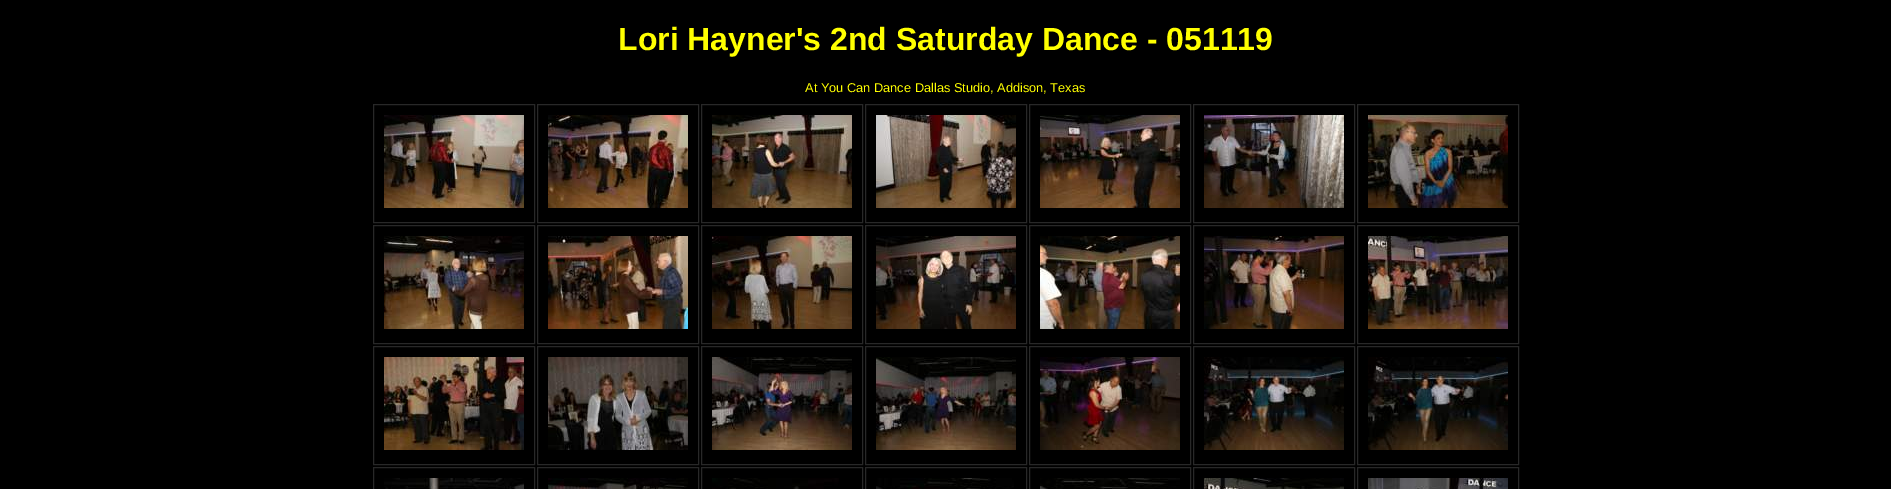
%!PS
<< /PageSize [1891 489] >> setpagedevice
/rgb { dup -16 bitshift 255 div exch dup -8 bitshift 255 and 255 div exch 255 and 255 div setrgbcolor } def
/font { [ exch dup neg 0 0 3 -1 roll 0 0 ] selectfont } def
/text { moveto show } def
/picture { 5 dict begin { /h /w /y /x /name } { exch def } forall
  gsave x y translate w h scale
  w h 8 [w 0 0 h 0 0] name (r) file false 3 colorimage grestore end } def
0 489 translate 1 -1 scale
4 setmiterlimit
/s1 { /LiberationSans-Bold 32 font 16#FFFF00 rgb } def
/s2 { /LiberationSans-Regular 12.8 font 16#FFFF00 rgb } def
16#000000 rgb
0 0 1891 489 rectfill
s1
(Lori Hayner's 2nd Saturday Dance - 051119) 618 50 text
s2
(At You Can Dance Dallas Studio, Addison, Texas) 805 92 text
16#282828 rgb
373.5 104.5 161 118 rectstroke
(pic1.raw) 384 115 140 93 picture
537.5 104.5 161 118 rectstroke
(pic2.raw) 548 115 140 93 picture
701.5 104.5 161 118 rectstroke
(pic3.raw) 712 115 140 93 picture
865.5 104.5 161 118 rectstroke
(pic4.raw) 876 115 140 93 picture
1029.5 104.5 161 118 rectstroke
(pic5.raw) 1040 115 140 93 picture
1193.5 104.5 161 118 rectstroke
(pic6.raw) 1204 115 140 93 picture
1357.5 104.5 161 118 rectstroke
(pic7.raw) 1368 115 140 93 picture
373.5 225.5 161 118 rectstroke
(pic8.raw) 384 236 140 93 picture
537.5 225.5 161 118 rectstroke
(pic9.raw) 548 236 140 93 picture
701.5 225.5 161 118 rectstroke
(pic10.raw) 712 236 140 93 picture
865.5 225.5 161 118 rectstroke
(pic11.raw) 876 236 140 93 picture
1029.5 225.5 161 118 rectstroke
(pic12.raw) 1040 236 140 93 picture
1193.5 225.5 161 118 rectstroke
(pic13.raw) 1204 236 140 93 picture
1357.5 225.5 161 118 rectstroke
(pic14.raw) 1368 236 140 93 picture
373.5 346.5 161 118 rectstroke
(pic15.raw) 384 357 140 93 picture
537.5 346.5 161 118 rectstroke
(pic16.raw) 548 357 140 93 picture
701.5 346.5 161 118 rectstroke
(pic17.raw) 712 357 140 93 picture
865.5 346.5 161 118 rectstroke
(pic18.raw) 876 357 140 93 picture
1029.5 346.5 161 118 rectstroke
(pic19.raw) 1040 357 140 93 picture
1193.5 346.5 161 118 rectstroke
(pic20.raw) 1204 357 140 93 picture
1357.5 346.5 161 118 rectstroke
(pic21.raw) 1368 357 140 93 picture
373.5 467.5 161 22 rectstroke
(pic22.raw) 384 478 140 11 picture
537.5 467.5 161 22 rectstroke
(pic23.raw) 548 478 140 11 picture
701.5 467.5 161 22 rectstroke
(pic24.raw) 712 478 127 11 picture
865.5 467.5 161 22 rectstroke
(pic25.raw) 876 478 138 11 picture
1029.5 467.5 161 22 rectstroke
(pic26.raw) 1040 478 140 11 picture
1193.5 467.5 161 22 rectstroke
(pic27.raw) 1204 478 140 11 picture
1357.5 467.5 161 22 rectstroke
(pic28.raw) 1368 478 140 11 picture
showpage
